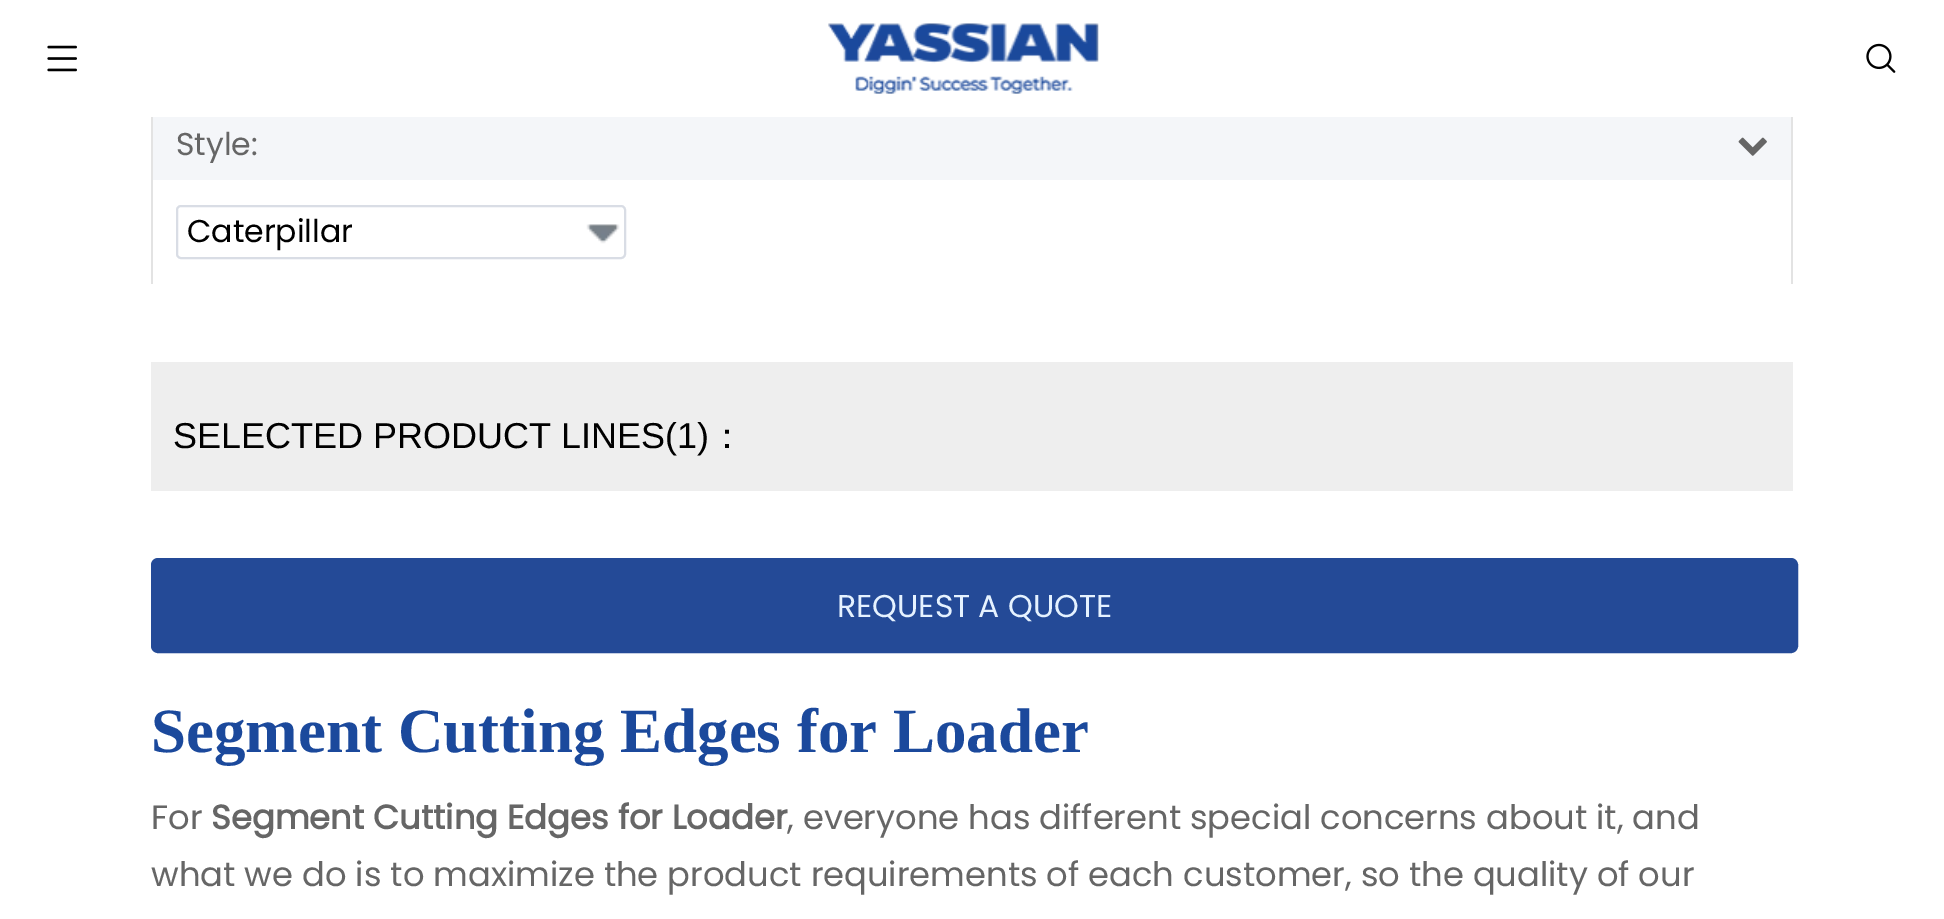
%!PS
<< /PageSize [1944 919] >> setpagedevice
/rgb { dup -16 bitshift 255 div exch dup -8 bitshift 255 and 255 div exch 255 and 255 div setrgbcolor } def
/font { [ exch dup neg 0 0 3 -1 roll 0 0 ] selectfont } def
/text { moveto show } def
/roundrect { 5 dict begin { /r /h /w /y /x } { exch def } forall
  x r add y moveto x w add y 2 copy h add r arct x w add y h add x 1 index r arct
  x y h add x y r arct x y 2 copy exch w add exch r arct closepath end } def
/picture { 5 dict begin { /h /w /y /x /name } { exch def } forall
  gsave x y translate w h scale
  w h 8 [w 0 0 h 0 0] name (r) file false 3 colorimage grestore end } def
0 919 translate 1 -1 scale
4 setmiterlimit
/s1 { /Poppins-Regular 31.5 font 16#666666 rgb } def
/s2 { /Poppins-Regular 31.5 font 16#000000 rgb } def
/s3 { /LiberationSans-Regular 36 font 16#000000 rgb } def
/s4 { /WenQuanYiZenHei-Medium 36 font 16#000000 rgb } def
/s5 { /Poppins-Regular 31.5 font 16#E5F2FF rgb } def
/s6 { /LiberationSerif-Bold 63 font 16#1B499C rgb } def
/s7 { /Poppins-Regular 33.75 font 16#666666 rgb } def
/s8 { /Poppins-Bold 33.75 font 16#666666 rgb } def
16#FFFFFF rgb
0 0 1944 919 rectfill
(pic1.raw) 47 45 30 27 picture
(pic2.raw) 828 23 271 71 picture
(pic3.raw) 1866 43 30 30 picture
16#E3E3E3 rgb
1791 117 2 167 rectfill
151 117 2 167 rectfill
16#F4F6F9 rgb
153 117 1638 63 rectfill
s1
(Style:) 176 155 text
(pic4.raw) 1738 137 29 19 picture
(pic5.raw) 586 224 34 20 picture
16#D9DDE5 rgb
2 setlinewidth
177 206 448 52 4 roundrect stroke
s2
(Caterpillar) 187 242 text
16#EEEEEE rgb
151 362 1642 129 rectfill
s3
(SELECTED PRODUCT LINES\(1\)) 173 448 text
s4
(：) 709 448 text
16#244A97 rgb
152 559 1645 93 6 roundrect gsave fill grestore
stroke
s5
(REQUEST A QUOTE) 837 617 text
s6
(Segment Cutting Edges for Loader) 151 752 text
s7
(For) 151 829 text
s8
(Segment Cutting Edges for Loader) 211 829 text
s7
(, everyone has different special concerns about it, and) 787 829 text
(what we do is to maximize the product requirements of each customer, so the quality of our) 151 886 text
showpage
